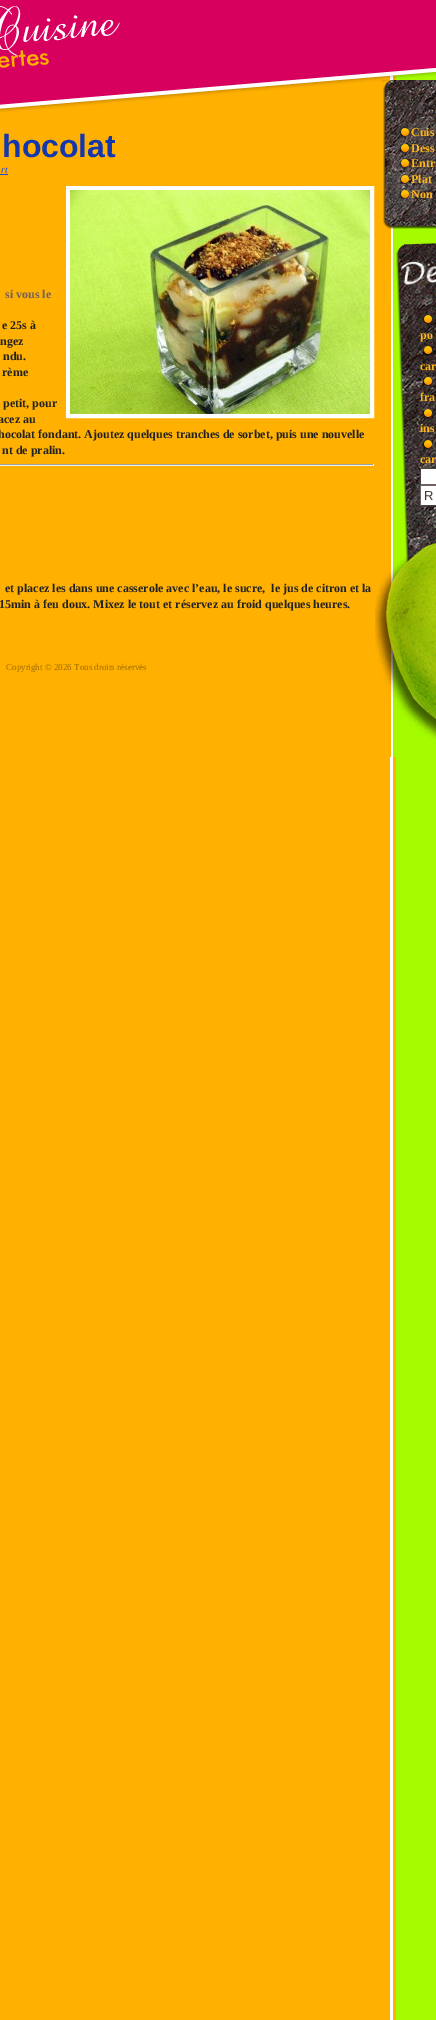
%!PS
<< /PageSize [436 2020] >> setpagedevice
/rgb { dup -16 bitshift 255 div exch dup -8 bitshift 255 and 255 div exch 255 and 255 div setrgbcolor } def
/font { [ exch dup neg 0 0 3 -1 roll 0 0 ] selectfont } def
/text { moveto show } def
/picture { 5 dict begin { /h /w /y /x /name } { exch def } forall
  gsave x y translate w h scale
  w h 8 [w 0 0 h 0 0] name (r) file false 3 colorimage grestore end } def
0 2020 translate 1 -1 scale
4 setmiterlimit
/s1 { /LiberationSans-Bold 32 font 16#1437AD rgb } def
/s2 { /LiberationSerif-Italic 10 font 16#1A47DE rgb } def
/s3 { /LiberationSerif-Bold 12 font 16#716160 rgb } def
/s4 { /LiberationSerif-Bold 12 font 16#222222 rgb } def
/s5 { /LiberationSerif-Bold 12 font 16#FFB81B rgb } def
/s6 { /LiberationSans-Regular 13 font 16#413837 rgb } def
/s7 { /LiberationSerif-Regular 9 font 16#A06E00 rgb } def
16#A5FC00 rgb
0 0 436 2020 rectfill
16#FFB000 rgb
0 75 396 1945 rectfill
16#FFFFFF rgb
390 75 3 1945 rectfill
(pic3.raw) 382 80 54 150 picture
(pic1.raw) 0 0 436 112 picture
s1
(hocolat) 2 157 text
s2
(rt) 1 173 text
0 174 8 1 rectfill
s3
(si vous le) 5 298 text
16#FFFFFF rgb
4 setlinewidth
68 188 304 228 rectstroke
(pic2.raw) 70 190 300 224 picture
s4
(e 25s à) 2 329 text
(ngez) 0 345 text
(ndu.) 3 360 text
(rème) 2 376 text
(petit, pour) 3 407 text
(acez au) -2 423 text
(hocolat fondant. Ajoutez quelques tranches de sorbet, puis une nouvelle) -2 438 text
(nt de pralin.) 2 454 text
16#9F9F9F rgb
0 464 374 1 rectfill
16#EEEEEE rgb
373 464 1 2 rectfill
0 465 374 1 rectfill
s4
(et placez les dans une casserole avec l’eau, le sucre,  le jus de citron et la) 5 592 text
(15min à feu doux. Mixez le tout et réservez au froid quelques heures.) -1 608 text
(pic4.raw) 399 128 10 10 picture
s5
(Cuis) 411 136 text
(pic5.raw) 399 144 10 10 picture
(Dess) 411 152 text
(pic6.raw) 399 159 10 10 picture
(Entr) 411 167 text
(pic7.raw) 399 175 10 10 picture
(Plat) 411 183 text
(pic8.raw) 399 190 10 10 picture
(Non) 411 198 text
(pic9.raw) 375 230 61 527 picture
(pic10.raw) 422 315 10 10 picture
(po) 420 339 text
(pic11.raw) 422 346 10 10 picture
(car) 420 370 text
(pic12.raw) 422 377 10 10 picture
(fra) 420 401 text
(pic13.raw) 422 409 10 10 picture
(ins) 420 432 text
(pic14.raw) 422 440 10 10 picture
(car) 420 463 text
16#FFFFFF rgb
421 469 15 15 rectfill
16#4B4140 rgb
420 468 16 1 rectfill
16#716160 rgb
420 484 16 2 rectfill
16#4B4140 rgb
420 468 1 17 rectfill
16#FFFFFF rgb
421 486 15 19 rectfill
16#4B4140 rgb
420 505 16 1 rectfill
16#716160 rgb
420 485 1 21 rectfill
s6
(R) 424 500 text
s7
(Copyright © 2026 Tous droits réservés) 6 670 text
showpage
